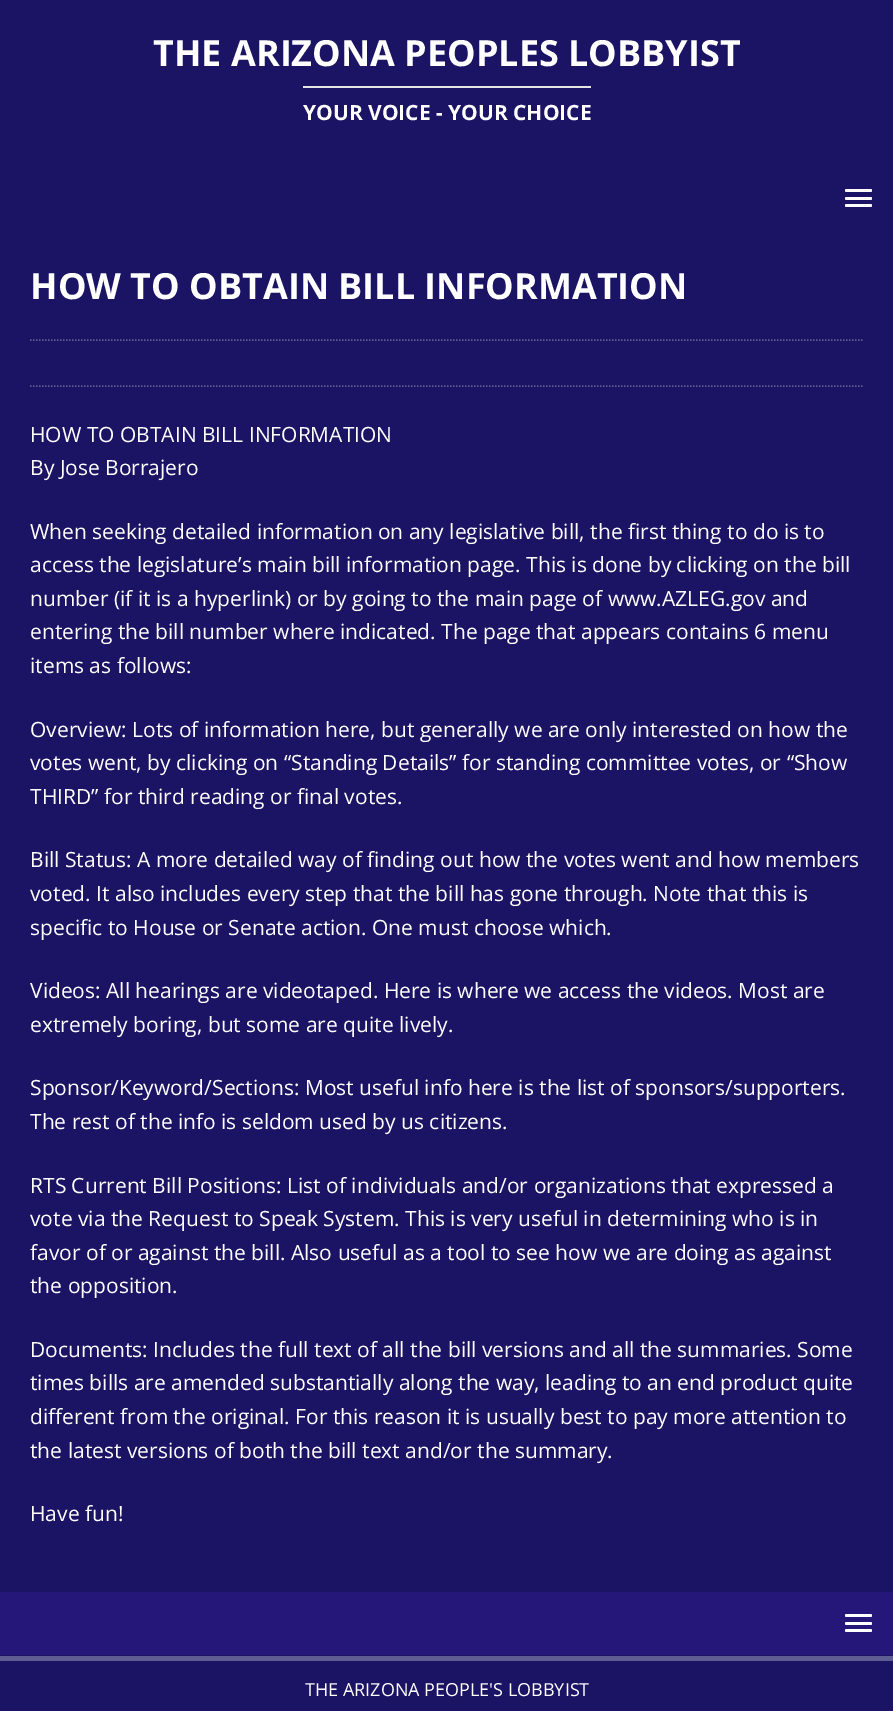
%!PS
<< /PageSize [893 1711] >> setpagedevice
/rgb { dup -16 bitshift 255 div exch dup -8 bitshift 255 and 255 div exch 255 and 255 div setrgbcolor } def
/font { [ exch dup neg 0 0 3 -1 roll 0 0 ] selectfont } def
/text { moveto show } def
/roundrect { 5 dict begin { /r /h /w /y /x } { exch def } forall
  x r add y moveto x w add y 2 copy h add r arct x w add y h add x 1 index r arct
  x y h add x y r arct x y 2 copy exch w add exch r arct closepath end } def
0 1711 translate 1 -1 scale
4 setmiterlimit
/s1 { /OpenSans-Bold 36 font 16#FFFFFF rgb } def
/s2 { /OpenSans-Bold 21 font 16#FFFFFF rgb } def
/s3 { /OpenSans-Regular 21 font 16#FFFFFF rgb } def
/s4 { /OpenSans-Regular 18 font 16#FFFFFF rgb } def
16#1B1464 rgb
0 0 893 1711 rectfill
s1
(THE ARIZONA PEOPLES LOBBYIST) 153 66 text
16#E5E5E5 rgb
303 86 288 2 rectfill
s2
(YOUR VOICE - YOUR CHOICE) 303 120 text
845 189 27 3 1.5 roundrect fill
845 197 27 3 1.5 roundrect fill
845 204 27 3 1.5 roundrect fill
s1
(HOW TO OBTAIN BILL INFORMATION) 30 299 text
16#5F5B93 rgb
1.5 setlinewidth
[1.5 1.5] 0 setdash
30 340 moveto 864 340 lineto stroke
30 386 moveto 864 386 lineto stroke
s3
(HOW TO OBTAIN BILL INFORMATION) 30 442 text
(By Jose Borrajero) 30 475 text
(When seeking detailed information on any legislative bill, the first thing to do is to) 30 539 text
(access the legislature’s main bill information page. This is done by clicking on the bill) 30 572 text
(number \(if it is a hyperlink\) or by going to the main page of www.AZLEG.gov and) 30 606 text
(entering the bill number where indicated. The page that appears contains 6 menu) 30 639 text
(items as follows:) 30 673 text
(Overview: Lots of information here, but generally we are only interested on how the) 30 737 text
(votes went, by clicking on “Standing Details” for standing committee votes, or “Show) 30 770 text
(THIRD” for third reading or final votes.) 30 804 text
(Bill Status: A more detailed way of finding out how the votes went and how members) 30 867 text
(voted. It also includes every step that the bill has gone through. Note that this is) 30 901 text
(specific to House or Senate action. One must choose which.) 30 935 text
(Videos: All hearings are videotaped. Here is where we access the videos. Most are) 30 998 text
(extremely boring, but some are quite lively.) 30 1032 text
(Sponsor/Keyword/Sections: Most useful info here is the list of sponsors/supporters.) 30 1095 text
(The rest of the info is seldom used by us citizens.) 30 1129 text
(RTS Current Bill Positions: List of individuals and/or organizations that expressed a) 30 1193 text
(vote via the Request to Speak System. This is very useful in determining who is in) 30 1226 text
(favor of or against the bill. Also useful as a tool to see how we are doing as against) 30 1260 text
(the opposition.) 30 1293 text
(Documents: Includes the full text of all the bill versions and all the summaries. Some) 30 1357 text
(times bills are amended substantially along the way, leading to an end product quite) 30 1390 text
(different from the original. For this reason it is usually best to pay more attention to) 30 1424 text
(the latest versions of both the bill text and/or the summary.) 30 1458 text
(Have fun!) 30 1521 text
16#25167A rgb
0 1592 893 63 rectfill
16#FFFFFF rgb
845 1614 27 3 1.5 roundrect fill
845 1622 27 3 1.5 roundrect fill
845 1629 27 3 1.5 roundrect fill
16#5F5B93 rgb
0 1656 893 5 rectfill
s4
(THE ARIZONA PEOPLE'S LOBBYIST) 305 1696 text
showpage
